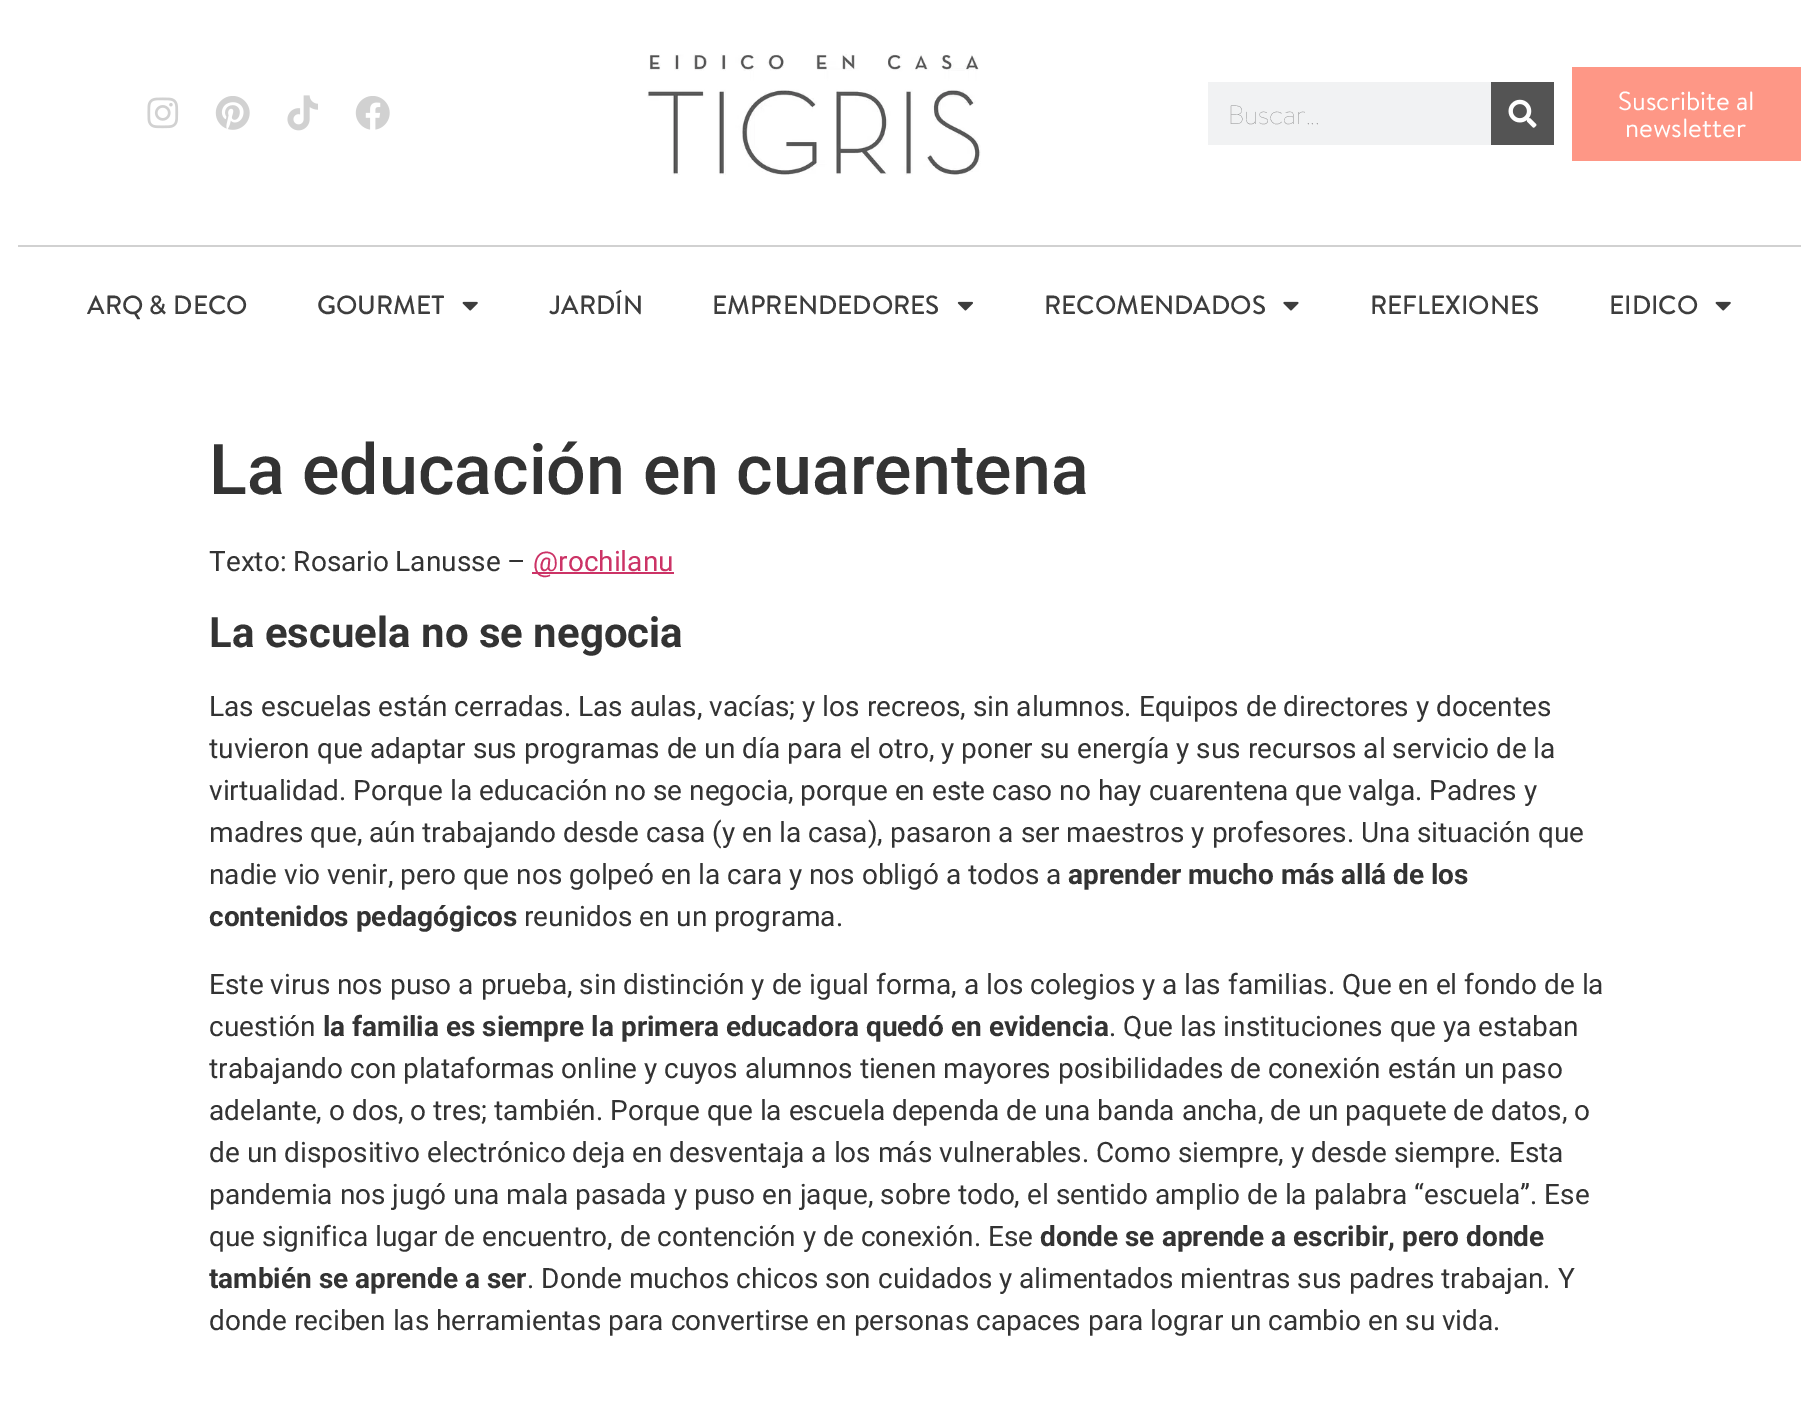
%!PS
<< /PageSize [1818 1428] >> setpagedevice
/rgb { dup -16 bitshift 255 div exch dup -8 bitshift 255 and 255 div exch 255 and 255 div setrgbcolor } def
/font { [ exch dup neg 0 0 3 -1 roll 0 0 ] selectfont } def
/text { moveto show } def
/picture { 5 dict begin { /h /w /y /x /name } { exch def } forall
  gsave x y translate w h scale
  w h 8 [w 0 0 h 0 0] name (r) file false 3 colorimage grestore end } def
0 1428 translate 1 -1 scale
4 setmiterlimit
/s1 { /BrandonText-Thin 26.25 font 16#939394 rgb } def
/s2 { /BrandonText-Regular 26.25 font 16#FFFFFF rgb } def
/s3 { /BrandonText-Medium 26.25 font 16#3D3D3D rgb } def
/s4 { /Roboto-Medium 70 font 16#333333 rgb } def
/s5 { /Roboto-Regular 28 font 16#333333 rgb } def
/s6 { /Roboto-Regular 28 font 16#CC3366 rgb } def
/s7 { /Roboto-Bold 42 font 16#333333 rgb } def
/s8 { /Roboto-Bold 28 font 16#333333 rgb } def
16#FFFFFF rgb
0 0 1818 1428 rectfill
(pic1.raw) 147 97 32 32 picture
(pic2.raw) 215 96 35 34 picture
(pic3.raw) 287 95 31 36 picture
(pic4.raw) 355 96 35 34 picture
(pic5.raw) 647 54 334 121 picture
16#F1F2F3 rgb
1208 82 283 63 rectfill
s1
(Buscar...) 1228 124 text
16#545454 rgb
1491 82 63 63 rectfill
(pic6.raw) 1508 99 29 29 picture
16#FE9786 rgb
1572 67 229 94 rectfill
s2
(Suscribite al) 1618 110 text
(newsletter) 1625 137 text
16#D1D1D1 rgb
18 245 1783 2 rectfill
s3
(ARQ & DECO) 87 314 text
(GOURMET) 317 314 text
(pic7.raw) 462 301 16 10 picture
(JARDÍN) 549 314 text
(EMPRENDEDORES) 712 314 text
(pic8.raw) 957 301 16 10 picture
(RECOMENDADOS) 1044 314 text
(pic9.raw) 1283 301 16 10 picture
(REFLEXIONES) 1370 314 text
(EIDICO) 1609 314 text
(pic7.raw) 1715 301 16 10 picture
s4
(La educación en cuarentena) 209 494 text
s5
(Texto: Rosario Lanusse –) 209 571 text
16#CC3366 rgb
532 572 142 2 rectfill
(@rochilanu) 533 571 text
s7
(La escuela no se negocia) 209 647 text
s5
(Las escuelas están cerradas. Las aulas, vacías; y los recreos, sin alumnos. Equipos de directores y docentes) 209 716 text
(tuvieron que adaptar sus programas de un día para el otro, y poner su energía y sus recursos al servicio de la) 209 758 text
(virtualidad. Porque la educación no se negocia, porque en este caso no hay cuarentena que valga. Padres y) 209 800 text
(madres que, aún trabajando desde casa \(y en la casa\), pasaron a ser maestros y profesores. Una situación que) 209 842 text
(nadie vio venir, pero que nos golpeó en la cara y nos obligó a todos a) 209 884 text
s8
(aprender mucho más allá de los) 1068 884 text
(contenidos pedagógicos) 209 926 text
s5
(reunidos en un programa.) 524 926 text
(Este virus nos puso a prueba, sin distinción y de igual forma, a los colegios y a las familias. Que en el fondo de la) 209 994 text
(cuestión) 209 1036 text
s8
(la familia es siempre la primera educadora quedó en evidencia) 323 1036 text
s5
(. Que las instituciones que ya estaban) 1109 1036 text
(trabajando con plataformas online y cuyos alumnos tienen mayores posibilidades de conexión están un paso) 209 1078 text
(adelante, o dos, o tres; también. Porque que la escuela dependa de una banda ancha, de un paquete de datos, o) 209 1120 text
(de un dispositivo electrónico deja en desventaja a los más vulnerables. Como siempre, y desde siempre. Esta) 209 1162 text
(pandemia nos jugó una mala pasada y puso en jaque, sobre todo, el sentido amplio de la palabra “escuela”. Ese) 209 1204 text
(que significa lugar de encuentro, de contención y de conexión. Ese) 209 1246 text
s8
(donde se aprende a escribir, pero donde) 1040 1246 text
(también se aprende a ser) 209 1288 text
s5
(. Donde muchos chicos son cuidados y alimentados mientras sus padres trabajan. Y) 527 1288 text
(donde reciben las herramientas para convertirse en personas capaces para lograr un cambio en su vida.) 209 1330 text
showpage
